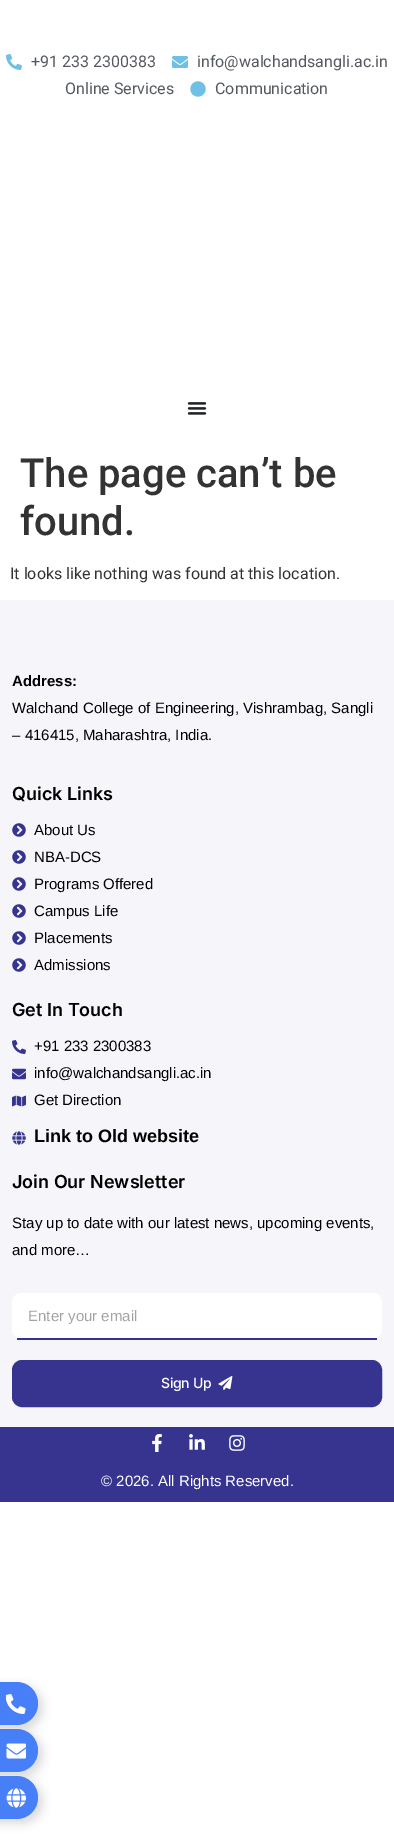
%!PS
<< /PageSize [394 1844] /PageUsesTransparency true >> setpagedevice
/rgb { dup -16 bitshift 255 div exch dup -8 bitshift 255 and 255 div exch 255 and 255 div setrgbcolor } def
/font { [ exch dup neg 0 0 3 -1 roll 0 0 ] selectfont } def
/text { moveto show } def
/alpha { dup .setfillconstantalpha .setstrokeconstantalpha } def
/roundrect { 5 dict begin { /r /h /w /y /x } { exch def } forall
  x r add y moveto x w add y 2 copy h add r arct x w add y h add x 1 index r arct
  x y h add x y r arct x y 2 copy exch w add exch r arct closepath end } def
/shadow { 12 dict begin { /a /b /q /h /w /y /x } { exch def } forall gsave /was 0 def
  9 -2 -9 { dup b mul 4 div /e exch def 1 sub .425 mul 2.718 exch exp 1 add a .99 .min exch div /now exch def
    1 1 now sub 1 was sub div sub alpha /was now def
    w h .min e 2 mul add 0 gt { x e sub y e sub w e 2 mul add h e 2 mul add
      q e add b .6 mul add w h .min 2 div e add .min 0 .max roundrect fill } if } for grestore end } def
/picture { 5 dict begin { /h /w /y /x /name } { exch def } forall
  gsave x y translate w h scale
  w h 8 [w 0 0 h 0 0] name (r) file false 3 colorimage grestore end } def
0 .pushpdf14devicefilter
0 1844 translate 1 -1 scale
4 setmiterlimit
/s1 { /Roboto-Regular 16 font 16#54595F rgb } def
/s2 { /Roboto-Medium 40 font 16#333333 rgb } def
/s3 { /Roboto-Regular 16 font 16#333333 rgb } def
/s4 { /LiberationSans-Bold 15 font 16#000000 rgb } def
/s5 { /LiberationSans-Regular 15 font 16#000000 rgb } def
/s6 { /Inter-SemiBold 18 font 16#000000 rgb } def
/s7 { /LiberationSans-Bold 18 font 16#000000 rgb } def
/s8 { /LiberationSans-Regular 15 font 16#A3A3A3 rgb } def
/s9 { /LiberationSans-Regular 15 font 16#FFFFFF rgb } def
16#FFFFFF rgb
0 0 394 1844 rectfill
(pic1.raw) 6 54 16 16 picture
s1
(+91 233 2300383) 31 67 text
(pic2.raw) 172 56 16 12 picture
(info@walchandsangli.ac.in) 197 67 text
(Online Services) 65 94 text
(pic3.raw) 190 81 16 16 picture
(Communication) 215 94 text
(pic4.raw) 187 402 20 13 picture
s2
(The page can’t be) 20 487 text
(found.) 20 535 text
s3
(It looks like nothing was found at this location.) 10 579 text
16#F6F6FA rgb
0 600 394 827 rectfill
s4
(Address:) 12 686 text
s5
(Walchand College of Engineering, Vishrambag, Sangli) 12 713 text
(– 416415, Maharashtra, India.) 12 740 text
s6
(Quick Links) 12 800 text
(pic5.raw) 12 823 14 14 picture
s5
(About Us) 34 835 text
(pic5.raw) 12 850 14 14 picture
(NBA-DCS) 34 862 text
(pic5.raw) 12 877 14 14 picture
(Programs Offered) 34 889 text
(pic5.raw) 12 904 14 14 picture
(Campus Life) 34 916 text
(pic5.raw) 12 931 14 14 picture
(Placements) 34 943 text
(pic5.raw) 12 958 14 14 picture
(Admissions) 34 970 text
s6
(Get In Touch) 12 1016 text
(pic6.raw) 12 1040 14 14 picture
s5
(+91 233 2300383) 34 1051 text
(pic7.raw) 12 1068 14 12 picture
(info@walchandsangli.ac.in) 34 1078 text
(pic8.raw) 12 1095 14 12 picture
(Get Direction) 34 1105 text
(pic9.raw) 12 1131 14 14 picture
s7
(Link to Old website) 34 1142 text
s6
(Join Our Newsletter) 12 1188 text
s5
(Stay up to date with our latest news, upcoming events,) 12 1228 text
(and more…) 12 1255 text
16#FFFFFF rgb
22 1293 moveto 372 1293 lineto 378 1293 382 1297 382 1303 curveto 382 1330 lineto 382 1334 378 1338 372 1338 curveto 22 1338 lineto 16 1338 12 1334 12 1330 curveto 12 1303 lineto 12 1297 16 1293 22 1293 curveto closepath fill
16#36348E rgb
17 1338 360 2 rectfill
s8
(Enter your email) 28 1321 text
16#36348E rgb
13 1361 368 45 9 roundrect gsave fill grestore
2 setlinewidth
stroke
/Inter-Medium 14 font
16#FFFFFF rgb
161 1388 moveto -0.25 0 (Sign Up) ashow
(pic10.raw) 218 1376 15 14 picture
16#36348E rgb
0 1427 394 75 rectfill
(pic11.raw) 152 1434 10 18 picture
(pic12.raw) 189 1434 16 16 picture
(pic13.raw) 229 1435 16 16 picture
s9
(© 2026. All Rights Reserved.) 101 1486 text
16#000000 rgb
-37 1686 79 43 21.5 5 0.15 shadow
16#467FF7 rgb
-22 1682 moveto 16.5 1682 lineto 28.5 1682 38 1691.5 38 1703.5 curveto 38 1715.5 28.5 1725 16.5 1725 curveto -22 1725 lineto closepath fill
(pic14.raw) 6 1694 20 20 picture
16#000000 rgb
-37 1733 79 43 21.5 5 0.15 shadow
16#467FF7 rgb
-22 1729 moveto 16.5 1729 lineto 28.5 1729 38 1738.5 38 1750.5 curveto 38 1762.5 28.5 1772 16.5 1772 curveto -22 1772 lineto closepath fill
(pic15.raw) 6 1743 20 16 picture
16#000000 rgb
-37 1780 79 43 21.5 5 0.15 shadow
16#467FF7 rgb
-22 1776 moveto 16.5 1776 lineto 28.5 1776 38 1785.5 38 1797.5 curveto 38 1809.5 28.5 1819 16.5 1819 curveto -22 1819 lineto closepath fill
(pic16.raw) 6 1788 20 20 picture
.poppdf14devicefilter showpage
